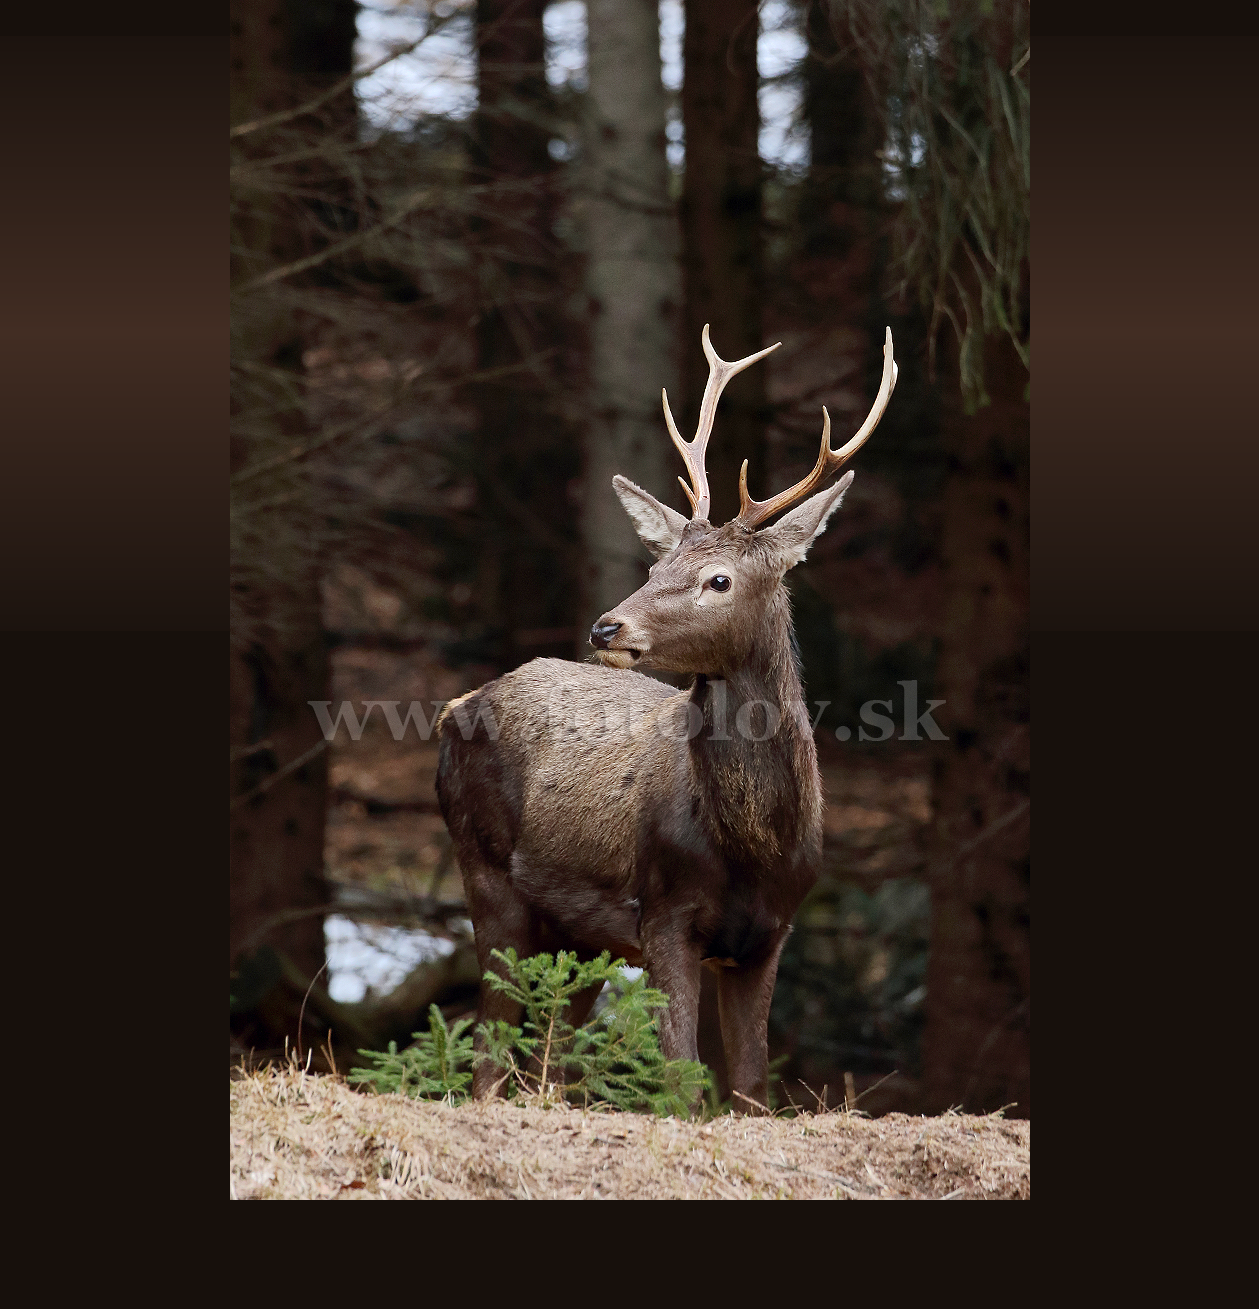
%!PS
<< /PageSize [1259 1309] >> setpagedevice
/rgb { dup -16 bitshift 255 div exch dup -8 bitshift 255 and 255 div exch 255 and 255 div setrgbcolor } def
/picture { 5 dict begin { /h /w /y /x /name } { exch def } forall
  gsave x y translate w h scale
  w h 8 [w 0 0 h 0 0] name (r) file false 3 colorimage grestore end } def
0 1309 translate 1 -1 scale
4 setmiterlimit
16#17100C rgb
0 0 1259 1309 rectfill
(pic1.raw) 0 36 1259 595 picture
(pic2.raw) 230 0 800 1200 picture
showpage
